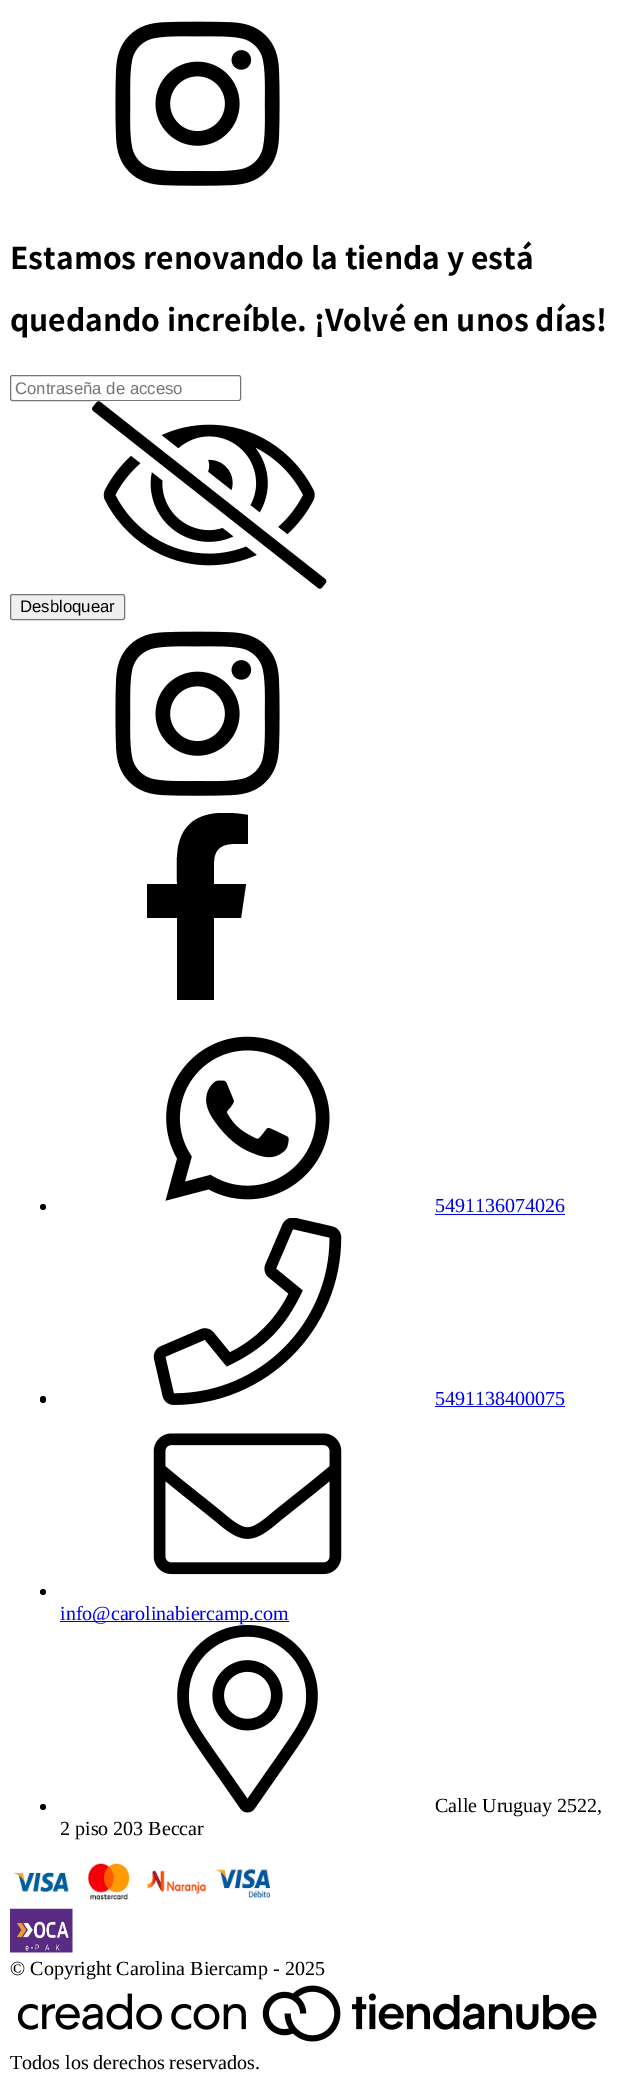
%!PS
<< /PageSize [623 2073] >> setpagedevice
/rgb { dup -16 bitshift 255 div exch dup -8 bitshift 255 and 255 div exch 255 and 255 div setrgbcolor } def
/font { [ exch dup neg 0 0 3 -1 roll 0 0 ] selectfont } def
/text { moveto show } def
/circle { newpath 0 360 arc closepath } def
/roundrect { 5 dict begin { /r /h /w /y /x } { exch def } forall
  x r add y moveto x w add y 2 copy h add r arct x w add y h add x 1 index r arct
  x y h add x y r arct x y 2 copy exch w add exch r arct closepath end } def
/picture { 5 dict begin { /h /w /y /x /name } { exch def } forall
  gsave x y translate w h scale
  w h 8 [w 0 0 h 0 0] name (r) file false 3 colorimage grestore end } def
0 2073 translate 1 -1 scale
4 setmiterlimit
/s1 { /NotoSansHK-Bold 30 font 16#000000 rgb } def
/s2 { /LiberationSans-Regular 16.75 font 16#757575 rgb } def
/s3 { /LiberationSans-Regular 16.75 font 16#000000 rgb } def
/s4 { /LiberationSerif-Regular 20 font 16#0000EE rgb } def
/s5 { /LiberationSerif-Regular 20 font 16#000000 rgb } def
16#FFFFFF rgb
0 0 623 2073 rectfill
(pic1.raw) 115 21 165 165 picture
s1
(Estamos renovando la tienda y está) 10 269 text
(quedando increíble. ¡Volvé en unos días!) 10 331 text
16#767676 rgb
10.5 375.5 230 25 2 roundrect stroke
s2
(Contraseña de acceso) 15 394 text
(pic2.raw) 92 401 235 188 picture
16#EFEFEF rgb
10.5 594.5 114 25 2 roundrect gsave fill grestore
16#767676 rgb
stroke
s3
(Desbloquear) 20 612 text
(pic1.raw) 115 631 165 165 picture
gsave
10 813 375 187 rectclip
241 918 moveto 246 884 lineto 214 884 lineto 214 862 lineto 214 853 218 844 233 844 curveto 248 844 lineto 248 815 lineto 218 810 184 811 178 848 curveto 176 860 177 872 177 884 curveto 147 884 lineto 147 918 lineto 177 918 lineto 177 1000 lineto 214 1000 lineto 214 918 lineto closepath fill
grestore
(pic3.raw) 165 1036 165 165 picture
43 1207 3 circle fill
s4
(5491136074026) 435 1212 text
435 1214 130 1 rectfill
16#000000 rgb
40 1396 6 7 3 roundrect fill
(pic4.raw) 153 1218 189 187 picture
s4
(5491138400075) 435 1405 text
435 1406 130 1 rectfill
(pic5.raw) 153 1433 189 142 picture
16#000000 rgb
43 1592 3 circle fill
16#0000EE rgb
60 1621 229 1 rectfill
(info@carolinabiercamp.com) 60 1620 text
16#000000 rgb
43 1807 3 circle fill
(pic6.raw) 177 1625 141 188 picture
(Calle Uruguay 2522,) 435 1812 text
(2 piso 203 Beccar) 60 1835 text
(pic7.raw) 14 1872 55 20 picture
(pic8.raw) 88 1863 42 37 picture
(pic9.raw) 147 1870 59 25 picture
(pic10.raw) 215 1869 56 30 picture
(pic11.raw) 10 1908 63 45 picture
(© Copyright Carolina Biercamp - 2025) 10 1975 text
(pic12.raw) 17 1985 580 57 picture
(Todos los derechos reservados.) 10 2069 text
showpage
